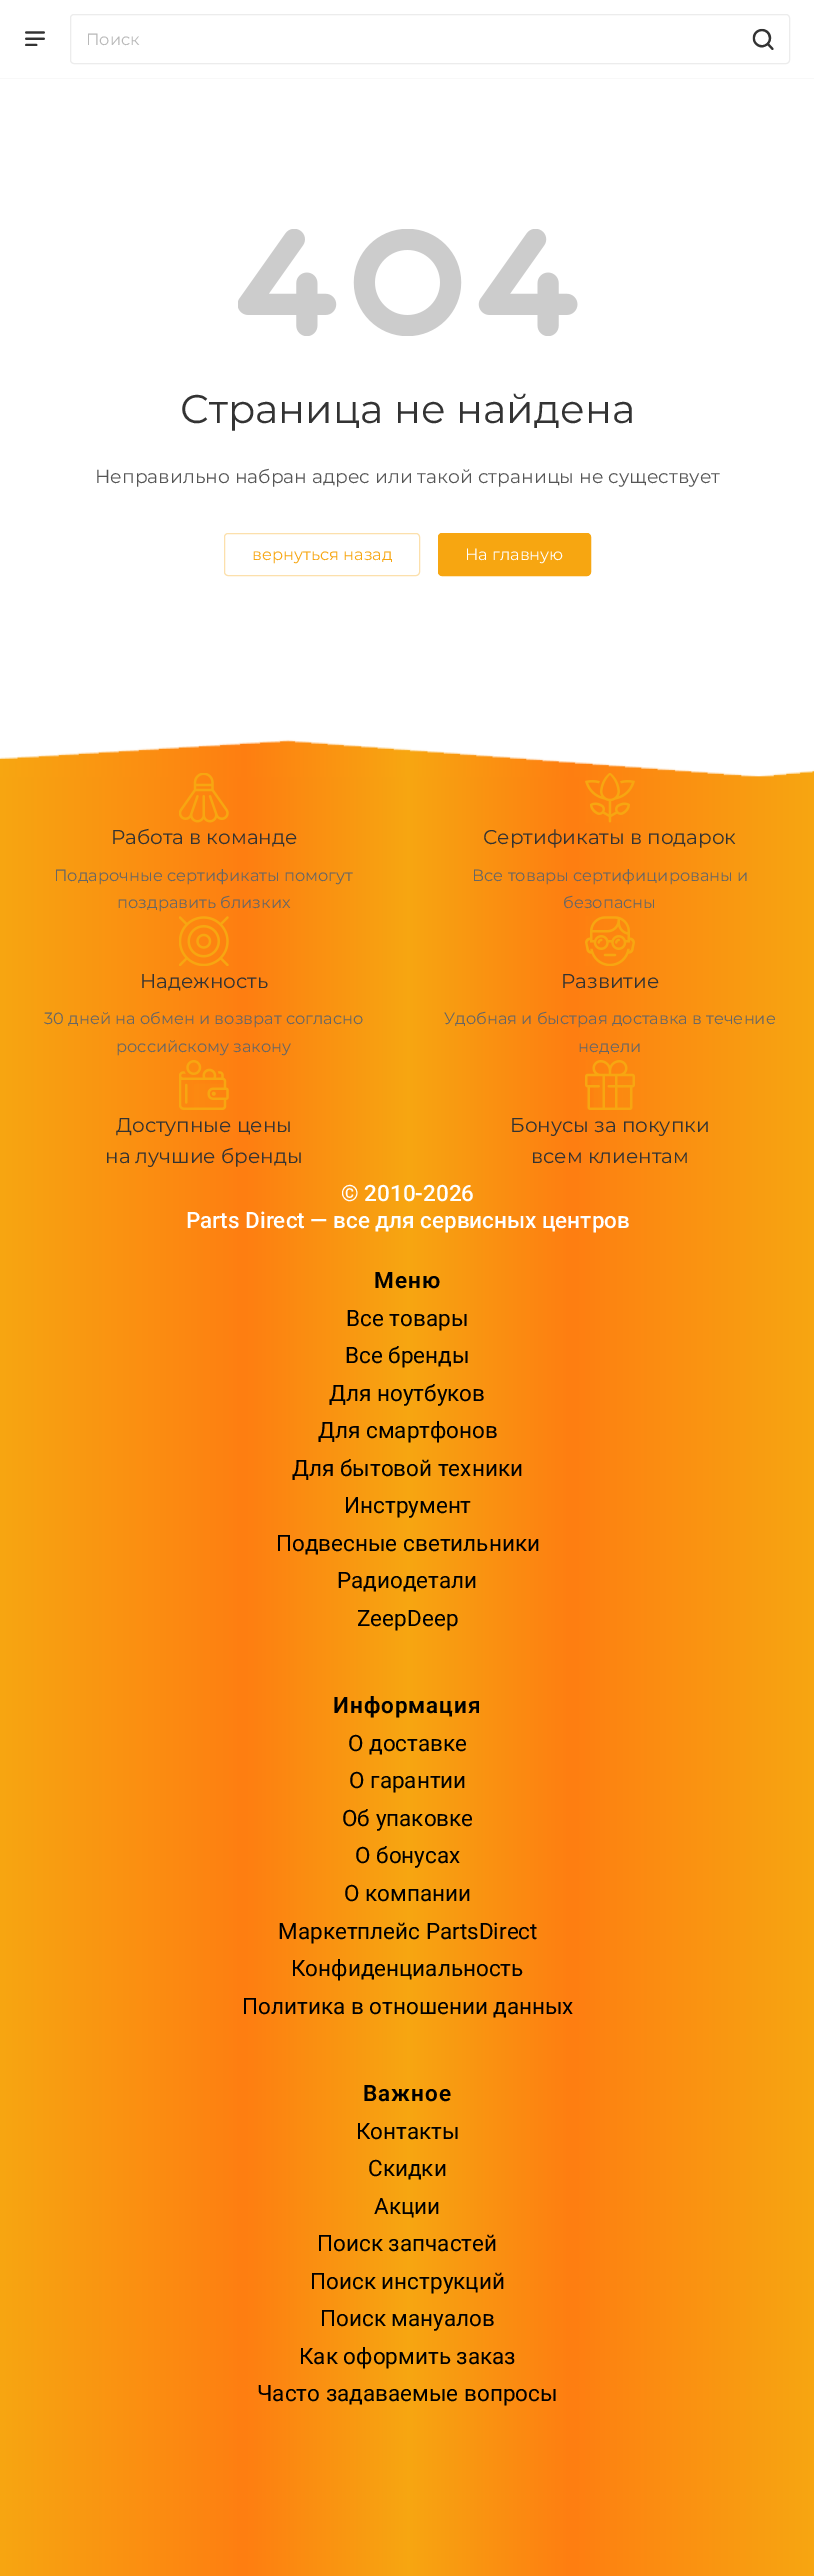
%!PS
<< /PageSize [814 2576] >> setpagedevice
/rgb { dup -16 bitshift 255 div exch dup -8 bitshift 255 and 255 div exch 255 and 255 div setrgbcolor } def
/font { [ exch dup neg 0 0 3 -1 roll 0 0 ] selectfont } def
/text { moveto show } def
/roundrect { 5 dict begin { /r /h /w /y /x } { exch def } forall
  x r add y moveto x w add y 2 copy h add r arct x w add y h add x 1 index r arct
  x y h add x y r arct x y 2 copy exch w add exch r arct closepath end } def
/picture { 5 dict begin { /h /w /y /x /name } { exch def } forall
  gsave x y translate w h scale
  w h 8 [w 0 0 h 0 0] name (r) file false 3 colorimage grestore end } def
0 2576 translate 1 -1 scale
4 setmiterlimit
/s1 { /Montserrat-Regular 16.25 font 16#B8B8B8 rgb } def
/s2 { /Montserrat-Regular 40 font 16#333333 rgb } def
/s3 { /Montserrat-Regular 18.75 font 16#555555 rgb } def
/s4 { /Montserrat-Regular 16.25 font 16#F7A611 rgb } def
/s5 { /Montserrat-Regular 16.25 font 16#FFFFFF rgb } def
/s6 { /Montserrat-Regular 20 font 16#333333 rgb } def
/s7 { /Montserrat-Regular 16.25 font 16#666666 rgb } def
/s8 { /Roboto-Medium 22.5 font 16#FFFFFF rgb } def
/s9 { /Roboto-Regular 22.5 font 16#000000 rgb } def
16#FFFFFF rgb
0 0 814 2576 rectfill
16#F8F8F8 rgb
0 78 814 1 rectfill
(pic1.raw) 25 31 20 15 picture
16#ECECEC rgb
70.5 14.5 719 49 3.5 roundrect stroke
s1
(Поиск) 86 45 text
(pic2.raw) 752 28 22 22 picture
(pic3.raw) 238 229 340 107 picture
s2
(Страница не найдена) 180 423 text
s3
(Неправильно набран адрес или такой страницы не существует) 95 483 text
16#FCE0AC rgb
224.5 533.5 195 42 3.5 roundrect stroke
s4
(вернуться назад) 252 560 text
438.5 533.5 152 42 3.5 roundrect gsave fill grestore
stroke
s5
(На главную) 465 560 text
gsave 0 739 moveto 814 739 lineto 814 2576 lineto 0 2576 lineto closepath clip newpath
<< /ShadingType 2 /ColorSpace /DeviceRGB /Coords [0 1647 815 1647] /Extend [true true] /Function << /FunctionType 3 /Domain [0 1] /Functions [<< /FunctionType 2 /Domain [0 1] /C0 [0.969 0.651 0.067] /C1 [0.996 0.494 0.067] /N 1 >> << /FunctionType 2 /Domain [0 1] /C0 [0.996 0.494 0.067] /C1 [0.969 0.651 0.067] /N 1 >> << /FunctionType 2 /Domain [0 1] /C0 [0.969 0.651 0.067] /C1 [0.996 0.494 0.067] /N 1 >> << /FunctionType 2 /Domain [0 1] /C0 [0.996 0.494 0.067] /C1 [0.969 0.651 0.067] /N 1 >>] /Bounds [0.3 0.5 0.7] /Encode [0 1 0 1 0 1 0 1] >> >> shfill grestore
(pic4.raw) 0 718 814 59 picture
(pic5.raw) 179 773 50 50 picture
s6
(Работа в команде) 111 844 text
s7
(Подарочные сертификаты помогут) 54 881 text
(поздравить близких) 117 908 text
(pic6.raw) 585 773 50 50 picture
s6
(Сертификаты в подарок) 483 844 text
s7
(Все товары сертифицированы и) 472 881 text
(безопасны) 563 908 text
(pic7.raw) 179 916 50 50 picture
s6
(Надежность) 140 988 text
s7
(30 дней на обмен и возврат согласно) 44 1024 text
(российскому закону) 116 1052 text
(pic8.raw) 585 916 50 50 picture
s6
(Развитие) 561 988 text
s7
(Удобная и быстрая доставка в течение) 444 1024 text
(недели) 578 1052 text
(pic9.raw) 179 1060 50 50 picture
s6
(Доступные цены) 116 1132 text
(на лучшие бренды) 105 1163 text
(pic10.raw) 585 1060 50 50 picture
(Бонусы за покупки) 510 1132 text
(всем клиентам) 531 1163 text
s8
(© 2010-2026) 341 1201 text
(Parts Direct — все для сервисных центров) 186 1228 text
/Roboto-SemiBold 22.5 font
16#000000 rgb
374 1288 moveto 1 0 (Меню) ashow
s9
(Все товары) 346 1326 text
(Все бренды) 345 1363 text
(Для ноутбуков) 329 1401 text
(Для смартфонов) 318 1438 text
(Для бытовой техники) 292 1476 text
(Инструмент) 344 1513 text
(Подвесные светильники) 276 1551 text
(Радиодетали) 337 1588 text
(ZeepDeep) 357 1626 text
/Roboto-SemiBold 22.5 font
333 1713 moveto 1 0 (Информация) ashow
s9
(О доставке) 348 1751 text
(О гарантии) 349 1788 text
(Об упаковке) 342 1826 text
(О бонусах) 355 1863 text
(О компании) 344 1901 text
(Маркетплейс PartsDirect) 278 1939 text
(Конфиденциальность) 291 1976 text
(Политика в отношении данных) 242 2014 text
/Roboto-SemiBold 22.5 font
363 2101 moveto 1 0 (Важное) ashow
s9
(Контакты) 356 2139 text
(Скидки) 368 2176 text
(Акции) 374 2214 text
(Поиск запчастей) 317 2251 text
(Поиск инструкций) 310 2289 text
(Поиск мануалов) 320 2326 text
(Как оформить заказ) 299 2364 text
(Часто задаваемые вопросы) 257 2401 text
showpage
